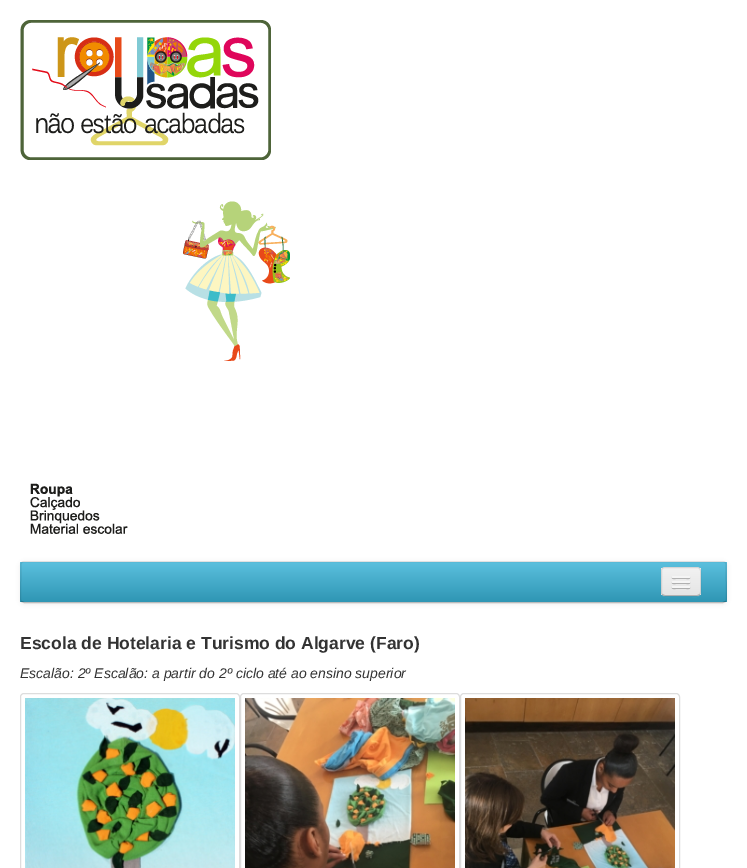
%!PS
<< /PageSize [747 868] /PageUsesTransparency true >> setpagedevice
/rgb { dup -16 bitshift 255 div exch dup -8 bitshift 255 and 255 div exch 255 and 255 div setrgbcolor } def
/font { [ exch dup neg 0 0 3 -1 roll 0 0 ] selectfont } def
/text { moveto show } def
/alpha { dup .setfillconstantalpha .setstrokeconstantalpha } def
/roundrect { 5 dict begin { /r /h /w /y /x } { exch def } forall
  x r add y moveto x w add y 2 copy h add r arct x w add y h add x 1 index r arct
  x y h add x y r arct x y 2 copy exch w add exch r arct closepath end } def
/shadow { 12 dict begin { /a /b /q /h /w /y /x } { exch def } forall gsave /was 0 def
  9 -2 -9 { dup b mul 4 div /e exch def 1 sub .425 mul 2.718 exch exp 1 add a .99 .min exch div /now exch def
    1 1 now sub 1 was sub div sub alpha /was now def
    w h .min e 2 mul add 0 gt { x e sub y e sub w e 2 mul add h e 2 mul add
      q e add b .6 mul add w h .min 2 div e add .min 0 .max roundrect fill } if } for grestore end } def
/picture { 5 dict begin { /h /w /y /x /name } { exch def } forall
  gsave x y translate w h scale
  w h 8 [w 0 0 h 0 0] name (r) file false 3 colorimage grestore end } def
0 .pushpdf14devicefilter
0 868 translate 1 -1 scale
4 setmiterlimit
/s1 { /LiberationSans-Bold 17.5 font 16#333333 rgb } def
/s2 { /LiberationSans-Italic 14 font 16#333333 rgb } def
16#FFFFFF rgb
0 0 747 868 rectfill
(pic1.raw) 20 20 251 140 picture
(pic2.raw) 183 201 107 160 picture
(pic3.raw) 30 483 98 51 picture
16#000000 rgb
20 562 707 42 4 2 0.07 shadow
16#FAFAFA rgb
20 561 707 42 4 roundrect fill
gsave
20 561 707 42 4 roundrect clip newpath
gsave 20 562 moveto 727 562 lineto 727 602 lineto 20 602 lineto closepath clip newpath
<< /ShadingType 2 /ColorSpace /DeviceRGB /Coords [374 562 374 602] /Extend [true true] /Function << /FunctionType 2 /Domain [0 1] /C0 [0.357 0.753 0.871] /C1 [0.184 0.588 0.706] /N 1 >> >> shfill grestore
grestore
0.25 alpha
16#000000 rgb
725.5 601.5 moveto 723 602.5 lineto 24 602.5 lineto 21.5 601.5 lineto stroke
0.1 alpha
21.5 601.5 moveto 20.5 599.5 lineto 21 563.5 lineto 21.5 562.5 22.5 561.5 24 561.5 curveto 723 561.5 lineto 724.5 561.5 725.5 562.5 726 563.5 curveto 726.5 599.5 lineto 725.5 601.5 lineto stroke
1 alpha
16#44A3BF rgb
661 592 moveto 661 598 666 597 670 597 curveto 692 597 lineto 696 597 701 598 701 592 curveto 701 594 699 596 697 596 curveto 665 596 lineto 663 596 661 594 661 592 curveto closepath fill
16#EDEDED rgb
661 567 40 29 4 roundrect fill
gsave
661 567 40 29 4 roundrect clip newpath
gsave 661 568 moveto 701 568 lineto 701 595 lineto 661 595 lineto closepath clip newpath
<< /ShadingType 2 /ColorSpace /DeviceRGB /Coords [681 568 681 595] /Extend [true true] /Function << /FunctionType 2 /Domain [0 1] /C0 [0.949 0.949 0.949] /C1 [0.898 0.898 0.898] /N 1 >> >> shfill grestore
grestore
0.25 alpha
16#000000 rgb
699.5 594.5 moveto 699 595 698 595.5 697 595.5 curveto 665 595.5 lineto 664 595.5 663 595 662.5 594.5 curveto stroke
0.1 alpha
662.5 594.5 moveto 662 594 661.5 593 661.5 592 curveto 661.5 571 lineto 661.5 570 662 569 662.5 568.5 curveto 663 568 664 567.5 665 567.5 curveto 697 567.5 lineto 698 567.5 699 568 699.5 568.5 curveto 700 569 700.5 570 700.5 571 curveto 700.5 592 lineto 700.5 593 700 594 699.5 594.5 curveto stroke
1 alpha
16#B2B2B2 rgb
672 577.5 moveto 671 579.5 675.5 579 675.5 579 curveto 686.5 579 lineto 686.5 579 691 579.5 690 577.5 curveto 689 578.5 682.5 578 681 578 curveto 679.5 578 673 578.5 672 577.5 curveto closepath fill
16#F5F5F5 rgb
672 576 18 2 1 roundrect fill
16#B0B0B0 rgb
672 582.5 moveto 671 584.5 675.5 584 675.5 584 curveto 686.5 584 lineto 686.5 584 691 584.5 690 582.5 curveto 689 583.5 682.5 583 681 583 curveto 679.5 583 673 583.5 672 582.5 curveto closepath fill
16#F5F5F5 rgb
672 581 18 2 1 roundrect fill
16#AEAEAE rgb
672 587.5 moveto 671 589.5 675.5 589 675.5 589 curveto 686.5 589 lineto 686.5 589 691 589.5 690 587.5 curveto 689 588.5 682.5 588 681 588 curveto 679.5 588 673 588.5 672 587.5 curveto closepath fill
16#F5F5F5 rgb
672 586 18 2 1 roundrect fill
s1
(Escola de Hotelaria e Turismo do Algarve \(Faro\)) 20 649 text
s2
(Escalão: 2º Escalão: a partir do 2º ciclo até ao ensino superior) 20 678 text
16#DDDDDD rgb
20.5 693.5 219 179 3.5 roundrect stroke
(pic4.raw) 25 698 210 170 picture
240.5 693.5 219 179 3.5 roundrect stroke
(pic5.raw) 245 698 210 170 picture
460.5 693.5 219 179 3.5 roundrect stroke
(pic6.raw) 465 698 210 170 picture
.poppdf14devicefilter showpage
